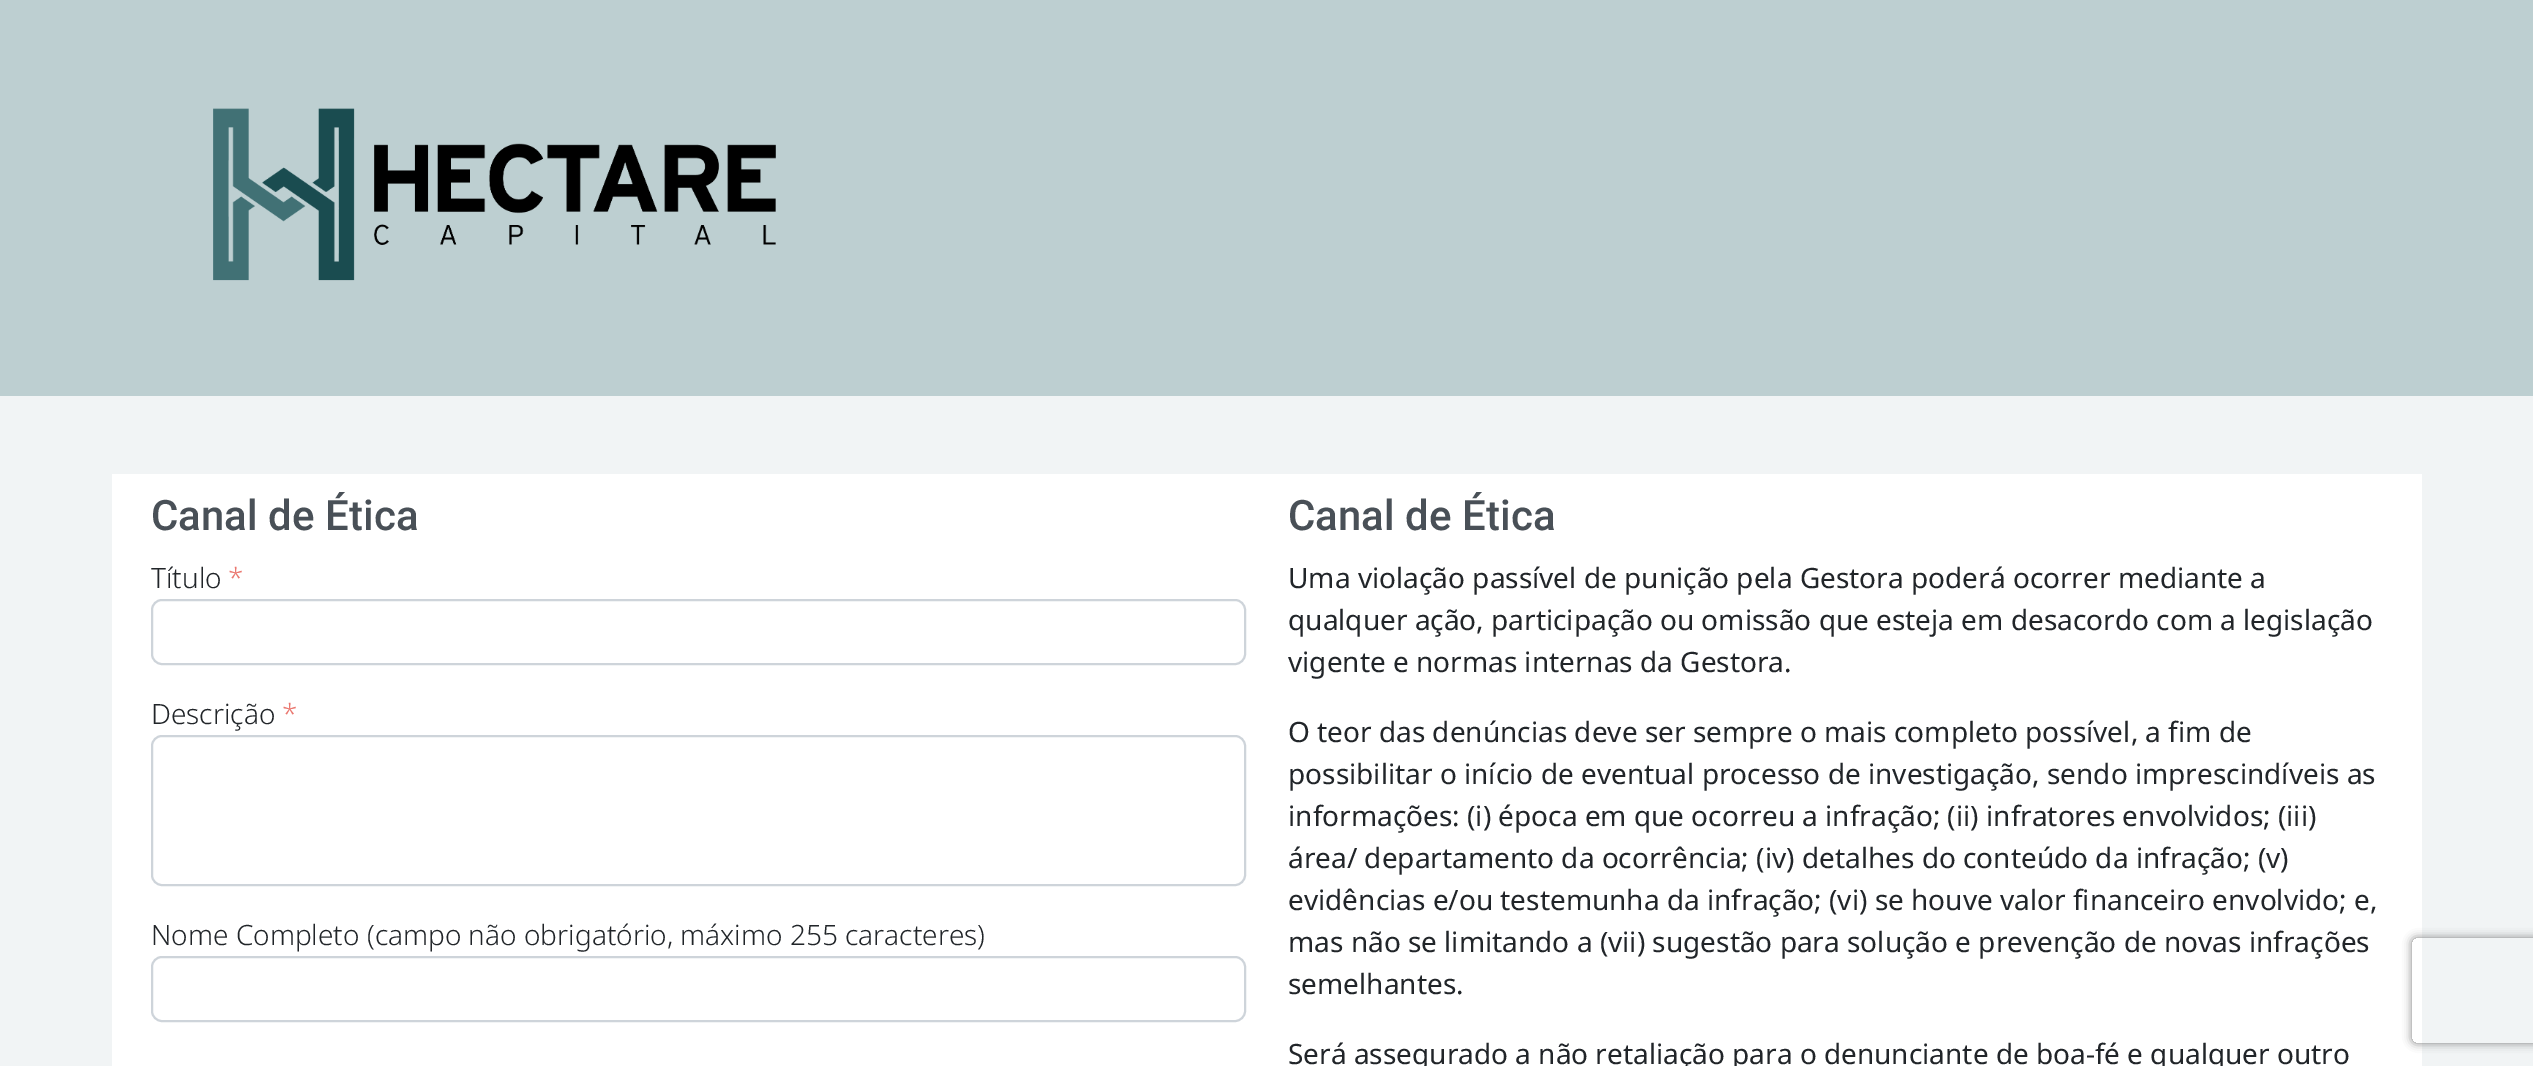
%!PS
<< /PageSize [2533 1066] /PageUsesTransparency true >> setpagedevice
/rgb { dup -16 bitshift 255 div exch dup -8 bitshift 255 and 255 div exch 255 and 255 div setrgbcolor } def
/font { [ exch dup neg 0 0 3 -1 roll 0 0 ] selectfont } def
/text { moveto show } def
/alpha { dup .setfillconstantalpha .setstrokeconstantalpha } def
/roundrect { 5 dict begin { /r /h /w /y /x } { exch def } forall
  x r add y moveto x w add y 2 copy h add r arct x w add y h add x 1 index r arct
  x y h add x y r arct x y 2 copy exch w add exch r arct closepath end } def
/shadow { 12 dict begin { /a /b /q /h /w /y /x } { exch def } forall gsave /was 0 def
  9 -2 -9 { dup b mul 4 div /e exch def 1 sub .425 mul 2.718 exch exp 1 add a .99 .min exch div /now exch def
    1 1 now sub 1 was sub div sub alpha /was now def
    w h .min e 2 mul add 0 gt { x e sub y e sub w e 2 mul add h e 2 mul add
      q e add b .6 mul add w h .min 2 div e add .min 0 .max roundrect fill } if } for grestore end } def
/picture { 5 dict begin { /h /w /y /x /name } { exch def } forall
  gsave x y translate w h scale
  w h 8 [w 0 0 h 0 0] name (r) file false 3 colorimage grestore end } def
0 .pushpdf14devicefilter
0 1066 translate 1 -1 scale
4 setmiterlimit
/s1 { /Roboto-Medium 42 font 16#495057 rgb } def
/s2 { /NotoSans-Light 28 font 16#212529 rgb } def
/s3 { /NotoSans-Light 28 font 16#EA7870 rgb } def
/s4 { /NotoSans-Regular 28 font 16#212529 rgb } def
16#F1F4F5 rgb
0 0 2533 1066 rectfill
16#BDCFD1 rgb
0 0 2533 396 rectfill
(pic1.raw) 213 108 563 173 picture
16#FFFFFF rgb
112 474 2310 592 rectfill
s1
(Canal de Ética) 151 530 text
s2
(Título) 151 588 text
s3
(*) 228 588 text
16#CED4DA rgb
2 setlinewidth
152 600 1093 64 10 roundrect stroke
s2
(Descrição) 151 724 text
s3
(*) 282 724 text
16#CED4DA rgb
152 736 1093 149 10 roundrect stroke
s2
(Nome Completo \(campo não obrigatório, máximo 255 caracteres\)) 151 945 text
16#CED4DA rgb
152 957 1093 64 10 roundrect stroke
s1
(Canal de Ética) 1288 530 text
s4
(Uma violação passível de punição pela Gestora poderá ocorrer mediante a) 1288 588 text
(qualquer ação, participação ou omissão que esteja em desacordo com a legislação) 1288 630 text
(vigente e normas internas da Gestora.) 1288 672 text
(O teor das denúncias deve ser sempre o mais completo possível, a fim de) 1288 742 text
(possibilitar o início de eventual processo de investigação, sendo imprescindíveis as) 1288 784 text
(informações: \(i\) época em que ocorreu a infração; \(ii\) infratores envolvidos; \(iii\)) 1288 826 text
(área/ departamento da ocorrência; \(iv\) detalhes do conteúdo da infração; \(v\)) 1288 868 text
(evidências e/ou testemunha da infração; \(vi\) se houve valor financeiro envolvido; e,) 1288 910 text
(mas não se limitando a \(vii\) sugestão para solução e prevenção de novas infrações) 1288 952 text
(semelhantes.) 1288 994 text
(Será assegurado a não retaliação para o denunciante de boa-fé e qualquer outro) 1288 1064 text
gsave
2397 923 moveto 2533 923 lineto 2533 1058 lineto 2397 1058 lineto closepath 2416 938 moveto 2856 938 lineto 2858 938 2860 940 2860 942 curveto 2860 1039 lineto 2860 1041 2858 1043 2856 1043 curveto 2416 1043 lineto 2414 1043 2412 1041 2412 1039 curveto 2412 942 lineto 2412 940 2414 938 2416 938 curveto closepath eoclip newpath
16#808080 rgb
2412 938 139 105 4 4.5 1 shadow
grestore
.poppdf14devicefilter showpage
